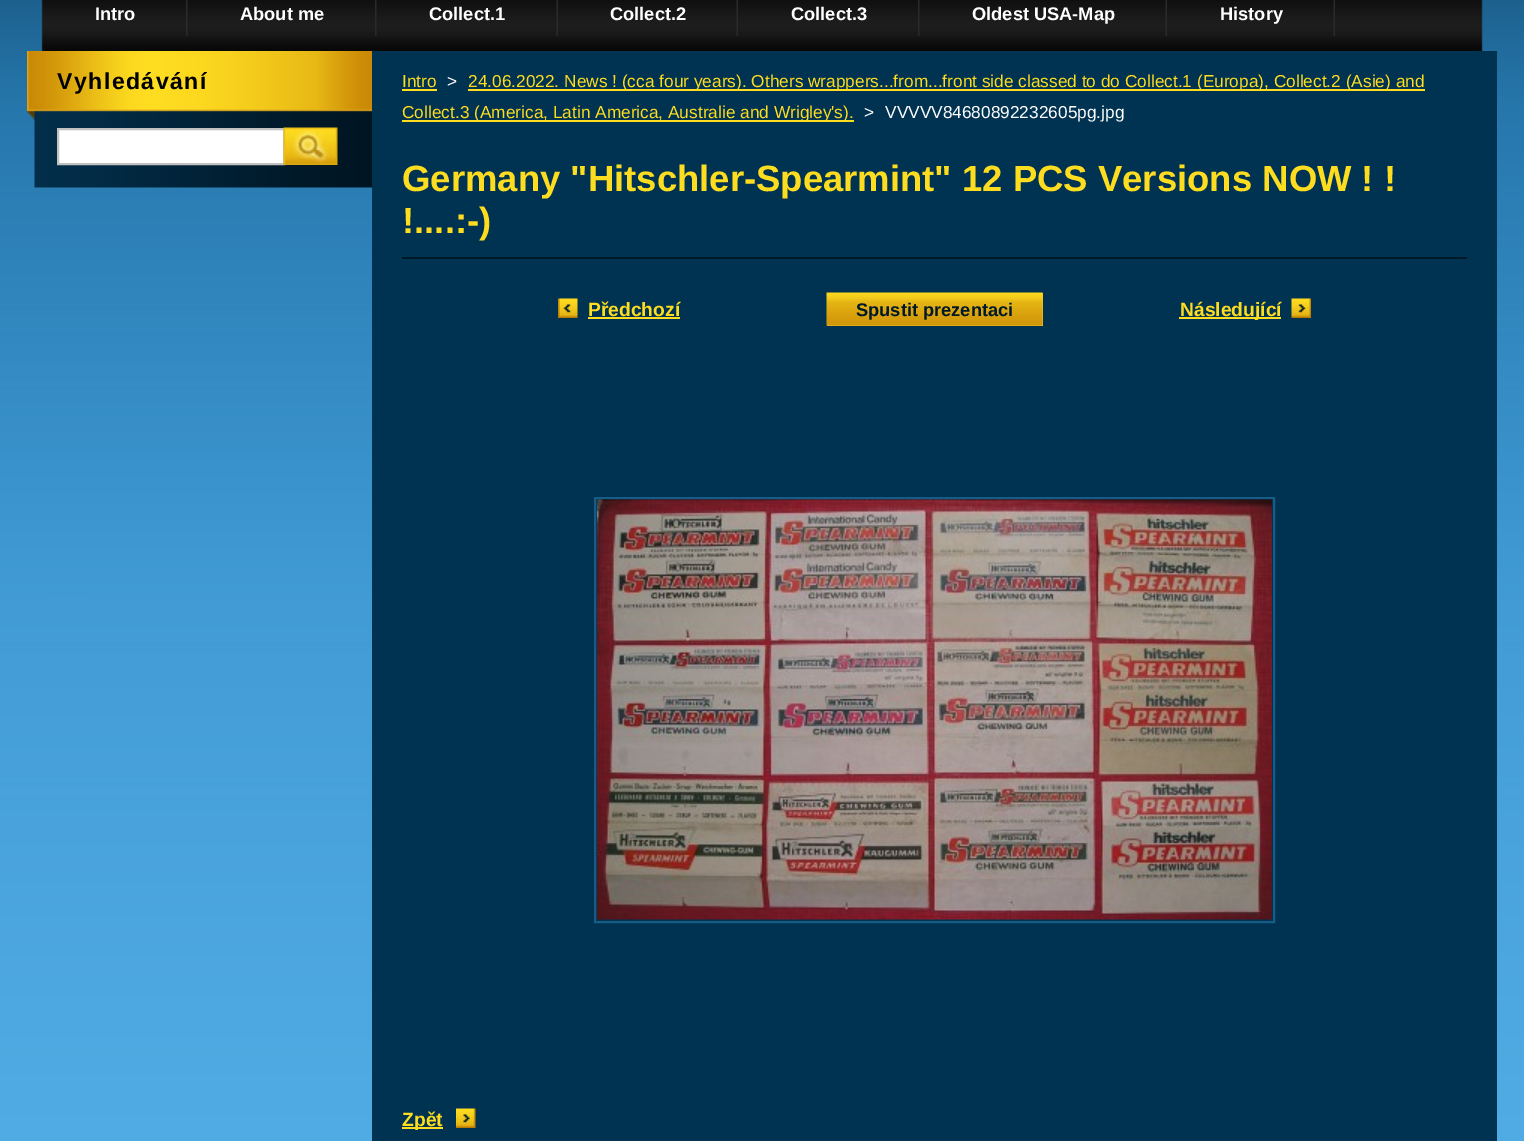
%!PS
<< /PageSize [1524 1141] >> setpagedevice
/rgb { dup -16 bitshift 255 div exch dup -8 bitshift 255 and 255 div exch 255 and 255 div setrgbcolor } def
/font { [ exch dup neg 0 0 3 -1 roll 0 0 ] selectfont } def
/text { moveto show } def
/picture { 5 dict begin { /h /w /y /x /name } { exch def } forall
  gsave x y translate w h scale
  w h 8 [w 0 0 h 0 0] name (r) file false 3 colorimage grestore end } def
0 1141 translate 1 -1 scale
4 setmiterlimit
/s1 { /LiberationSans-Bold 18.25 font 16#FFFFFF rgb } def
/s2 { /LiberationSans-Regular 17.28 font 16#FEDC20 rgb } def
/s3 { /LiberationSans-Regular 17.28 font 16#FFFFFF rgb } def
/s4 { /LiberationSans-Bold 36.5 font 16#FEDC20 rgb } def
/s5 { /LiberationSans-Bold 19.25 font 16#FEDC20 rgb } def
/s6 { /LiberationSans-Bold 18.25 font 16#001929 rgb } def
16#FFFFFF rgb
0 0 1524 1141 rectfill
(pic1.raw) 0 0 1524 1141 picture
(pic2.raw) 41 0 1442 51 picture
(pic3.raw) 186 0 2 36 picture
s1
(Intro) 95 20 text
(pic3.raw) 375 0 2 36 picture
(About me) 240 20 text
(pic4.raw) 556 0 2 36 picture
(Collect.1) 429 20 text
(pic4.raw) 736 0 2 36 picture
(Collect.2) 610 20 text
(pic3.raw) 918 0 2 36 picture
(Collect.3) 791 20 text
(pic4.raw) 1165 0 2 36 picture
(Oldest USA-Map) 972 20 text
(pic4.raw) 1333 0 2 36 picture
(History) 1220 20 text
(pic5.raw) 34 111 338 77 picture
(pic6.raw) 27 51 345 69 picture
/LiberationSans-Bold 23 font
16#000000 rgb
57 89 moveto 1.5 0 (Vyhledávání) ashow
16#FFFFFF rgb
58 129 moveto 284 129 lineto 284 164 lineto 58 164 lineto closepath gsave fill grestore
16#C1C1C1 rgb
2 setlinewidth
stroke
(pic7.raw) 283 127 55 38 picture
16#003251 rgb
372 51 1125 1090 rectfill
s2
(Intro) 402 87 text
402 89 35 2 rectfill
s3
(>) 447 87 text
16#FEDC20 rgb
468 89 957 2 rectfill
(24.06.2022. News ! \(cca four years\). Others wrappers...from...front side classed to do Collect.1 \(Europa\), Collect.2 \(Asie\) and) 468 87 text
402 120 452 2 rectfill
(Collect.3 \(America, Latin America, Australie and Wrigley's\).) 402 118 text
s3
(>) 864 118 text
(VVVVV84680892232605pg.jpg) 885 118 text
16#001929 rgb
402 257 1065 2 rectfill
s4
(Germany "Hitschler-Spearmint" 12 PCS Versions NOW ! !) 402 191 text
(!....:-\)) 402 233 text
(pic8.raw) 558 298 20 20 picture
s5
(Předchozí) 588 316 text
588 317 92 2 rectfill
16#F2C81A rgb
827 293 216 33 rectfill
(pic9.raw) 826 292 217 34 picture
s6
(Spustit prezentaci) 856 316 text
(pic10.raw) 1291 298 20 20 picture
16#FEDC20 rgb
1179 317 102 2 rectfill
s5
(Následující) 1180 316 text
16#165C87 rgb
595 498 679 424 rectstroke
(pic11.raw) 597 499 675 421 picture
(pic12.raw) 456 1108 20 20 picture
16#FEDC20 rgb
402 1127 41 2 rectfill
(Zpět) 402 1126 text
showpage
